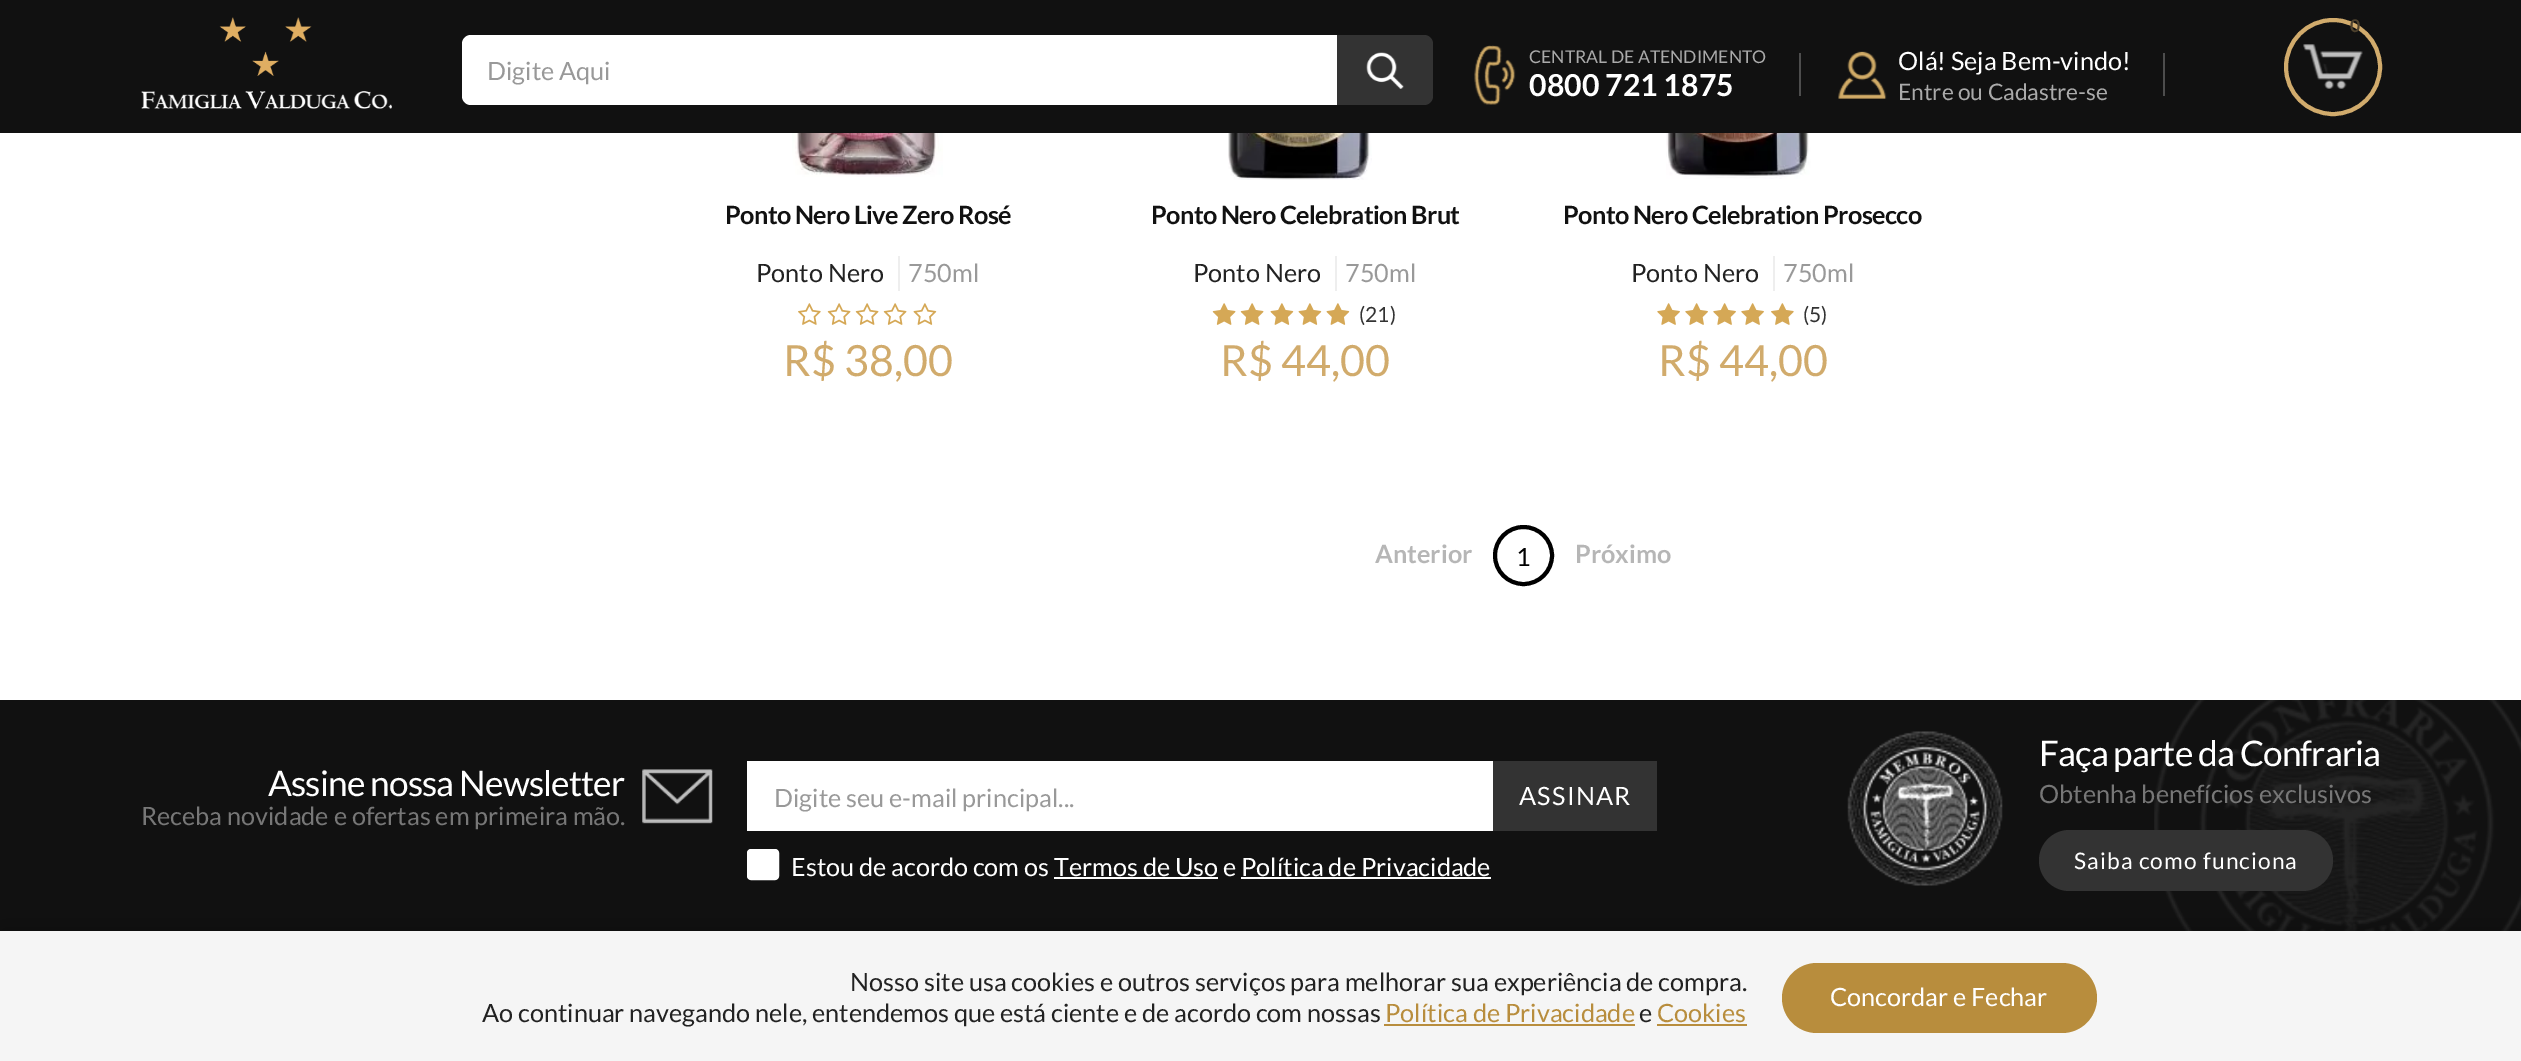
%!PS
<< /PageSize [2521 1061] /PageUsesTransparency true >> setpagedevice
/rgb { dup -16 bitshift 255 div exch dup -8 bitshift 255 and 255 div exch 255 and 255 div setrgbcolor } def
/font { [ exch dup neg 0 0 3 -1 roll 0 0 ] selectfont } def
/text { moveto show } def
/alpha { dup .setfillconstantalpha .setstrokeconstantalpha } def
/circle { newpath 0 360 arc closepath } def
/roundrect { 5 dict begin { /r /h /w /y /x } { exch def } forall
  x r add y moveto x w add y 2 copy h add r arct x w add y h add x 1 index r arct
  x y h add x y r arct x y 2 copy exch w add exch r arct closepath end } def
/shadow { 12 dict begin { /a /b /q /h /w /y /x } { exch def } forall gsave /was 0 def
  9 -2 -9 { dup b mul 4 div /e exch def 1 sub .425 mul 2.718 exch exp 1 add a .99 .min exch div /now exch def
    1 1 now sub 1 was sub div sub alpha /was now def
    w h .min e 2 mul add 0 gt { x e sub y e sub w e 2 mul add h e 2 mul add
      q e add b .6 mul add w h .min 2 div e add .min 0 .max roundrect fill } if } for grestore end } def
/picture { 5 dict begin { /h /w /y /x /name } { exch def } forall
  gsave x y translate w h scale
  w h 8 [w 0 0 h 0 0] name (r) file false 3 colorimage grestore end } def
0 .pushpdf14devicefilter
0 1061 translate 1 -1 scale
4 setmiterlimit
/s1 { /Lato-Bold 17.6 font 16#4D412D rgb } def
/s2 { /Lato-Regular 25.2 font 16#999999 rgb } def
/s3 { /Lato-Regular 17.6 font 16#AAAAAA rgb } def
/s4 { /Lato-Bold 30.25 font 16#FFFFFF rgb } def
/s5 { /Lato-Regular 25.2 font 16#FFFFFF rgb } def
/s6 { /Lato-Regular 22.75 font 16#AAAAAA rgb } def
/s7 { /Lato-Regular 25.2 font 16#222222 rgb } def
/s8 { /Lato-Regular 43 font 16#D1AB6C rgb } def
/s9 { /Lato-Regular 21 font 16#333333 rgb } def
/s10 { /Lato-Bold 25.2 font 16#B6B6B6 rgb } def
/s11 { /Lato-Regular 25.2 font 16#000000 rgb } def
/s12 { /Lato-Regular 25.2 font 16#777777 rgb } def
/s13 { /Lato-Regular 25.2 font 16#B88D3D rgb } def
16#FFFFFF rgb
0 0 2521 1061 rectfill
16#111111 rgb
0 0 2521 133 rectfill
(pic1.raw) 141 17 251 92 picture
16#D1AB6C rgb
4 setlinewidth
2333 67 47 circle stroke
s1
(0) 2350 32 text
(pic2.raw) 2303 44 60 45 picture
16#FFFFFF rgb
471 35 moveto 1337 35 lineto 1337 105 lineto 471 105 lineto 466 105 462 101 462 96 curveto 462 44 lineto 462 39 466 35 471 35 curveto closepath fill
s2
(Digite Aqui) 487 80 text
16#333333 rgb
1337 35 moveto 1424 35 lineto 1429 35 1433 39 1433 44 curveto 1433 96 lineto 1433 101 1429 105 1424 105 curveto 1337 105 lineto closepath fill
(pic3.raw) 1366 52 38 37 picture
(pic4.raw) 1474 45 42 60 picture
s3
(CENTRAL DE ATENDIMENTO) 1529 63 text
16#4D4D4D rgb
1799 53 2 43 rectfill
s4
(0800 721 1875) 1529 96 text
(pic5.raw) 1838 51 49 48 picture
s5
(Olá! Seja Bem-vindo!) 1898 70 text
s6
(Entre ou Cadastre-se) 1898 100 text
16#4D4D4D rgb
2163 53 2 43 rectfill
(pic6.raw) 792 133 151 44 picture
/Lato-Bold 25.2 font
16#111111 rgb
725 224 moveto -0.6 0 (Ponto Nero Live Zero Rosé) ashow
s7
(Ponto Nero) 756 282 text
16#EEEEEE rgb
898 256 2 35 rectfill
s2
(750ml) 908 282 text
(pic7.raw) 798 303 23 22 picture
(pic8.raw) 827 303 24 22 picture
(pic8.raw) 855 303 24 22 picture
(pic8.raw) 883 303 24 22 picture
(pic9.raw) 913 303 24 22 picture
s8
(R$ 38,00) 783 376 text
(pic10.raw) 1228 133 146 47 picture
/Lato-Bold 25.2 font
16#111111 rgb
1151 224 moveto -0.6 0 (Ponto Nero Celebration Brut) ashow
s7
(Ponto Nero) 1193 282 text
16#EEEEEE rgb
1335 256 2 35 rectfill
s2
(750ml) 1345 282 text
(pic11.raw) 1212 303 24 22 picture
(pic11.raw) 1240 303 24 22 picture
(pic12.raw) 1270 303 24 22 picture
(pic12.raw) 1298 303 24 22 picture
(pic12.raw) 1326 303 24 22 picture
s9
(\(21\)) 1359 322 text
s8
(R$ 44,00) 1220 376 text
(pic13.raw) 1666 133 145 46 picture
/Lato-Bold 25.2 font
16#111111 rgb
1563 224 moveto -0.6 0 (Ponto Nero Celebration Prosecco) ashow
s7
(Ponto Nero) 1631 282 text
16#EEEEEE rgb
1773 256 2 35 rectfill
s2
(750ml) 1783 282 text
(pic14.raw) 1657 303 23 22 picture
(pic14.raw) 1685 303 23 22 picture
(pic14.raw) 1713 303 23 22 picture
(pic14.raw) 1741 303 23 22 picture
(pic15.raw) 1771 303 23 22 picture
s9
(\(5\)) 1803 322 text
s8
(R$ 44,00) 1658 376 text
s10
(Anterior) 1375 563 text
16#000000 rgb
1523.5 555.5 28.5 circle stroke
s11
(1) 1516 566 text
s10
(Próximo) 1575 563 text
16#111111 rgb
0 700 2521 231 rectfill
(pic16.raw) 2154 700 367 231 picture
/Lato-Regular 35.25 font
16#FFFFFF rgb
268 796 moveto -0.9 0 (Assine nossa Newsletter) ashow
(pic17.raw) 642 769 71 55 picture
s12
(Receba novidade e ofertas em primeira mão.) 141 825 text
16#FFFFFF rgb
747 761 746 70 rectfill
s2
(Digite seu e-mail principal...) 774 807 text
16#333333 rgb
1493 761 164 70 rectfill
16#FFFFFF rgb
1519 805 moveto 1.25 0 (ASSINAR) ashow
748 850 30 29 3 roundrect gsave fill grestore
2 setlinewidth
stroke
(Estou de acordo com os Termos de Uso e Política de Privacidade) 791 876 text
1054 877 164 2 rectfill
1241 877 250 2 rectfill
(pic18.raw) 1847 731 156 155 picture
/Lato-Regular 35.25 font
2039 766 moveto -0.9 0 (Faça parte da Confraria) ashow
s12
(Obtenha benefícios exclusivos) 2039 803 text
16#333333 rgb
2039 830 294 61 30.5 roundrect fill
/Lato-Regular 22.75 font
16#FFFFFF rgb
2074 869 moveto 1.1 0 (Saiba como funciona) ashow
16#000000 rgb
0 931 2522 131 0 17.5 0.25 shadow
16#F5F5F5 rgb
0 931 2521 130 rectfill
s7
(Nosso site usa cookies e outros serviços para melhorar sua experiência de compra.) 850 991 text
(Ao continuar navegando nele, entendemos que está ciente e de acordo com nossas) 482 1022 text
s13
(Política de Privacidade) 1385 1022 text
1384 1024 251 2 rectfill
s7
(e) 1639 1022 text
s13
(Cookies) 1657 1022 text
1657 1024 90 2 rectfill
1782 963 315 70 35 roundrect fill
s5
(Concordar e Fechar) 1830 1006 text
.poppdf14devicefilter showpage
